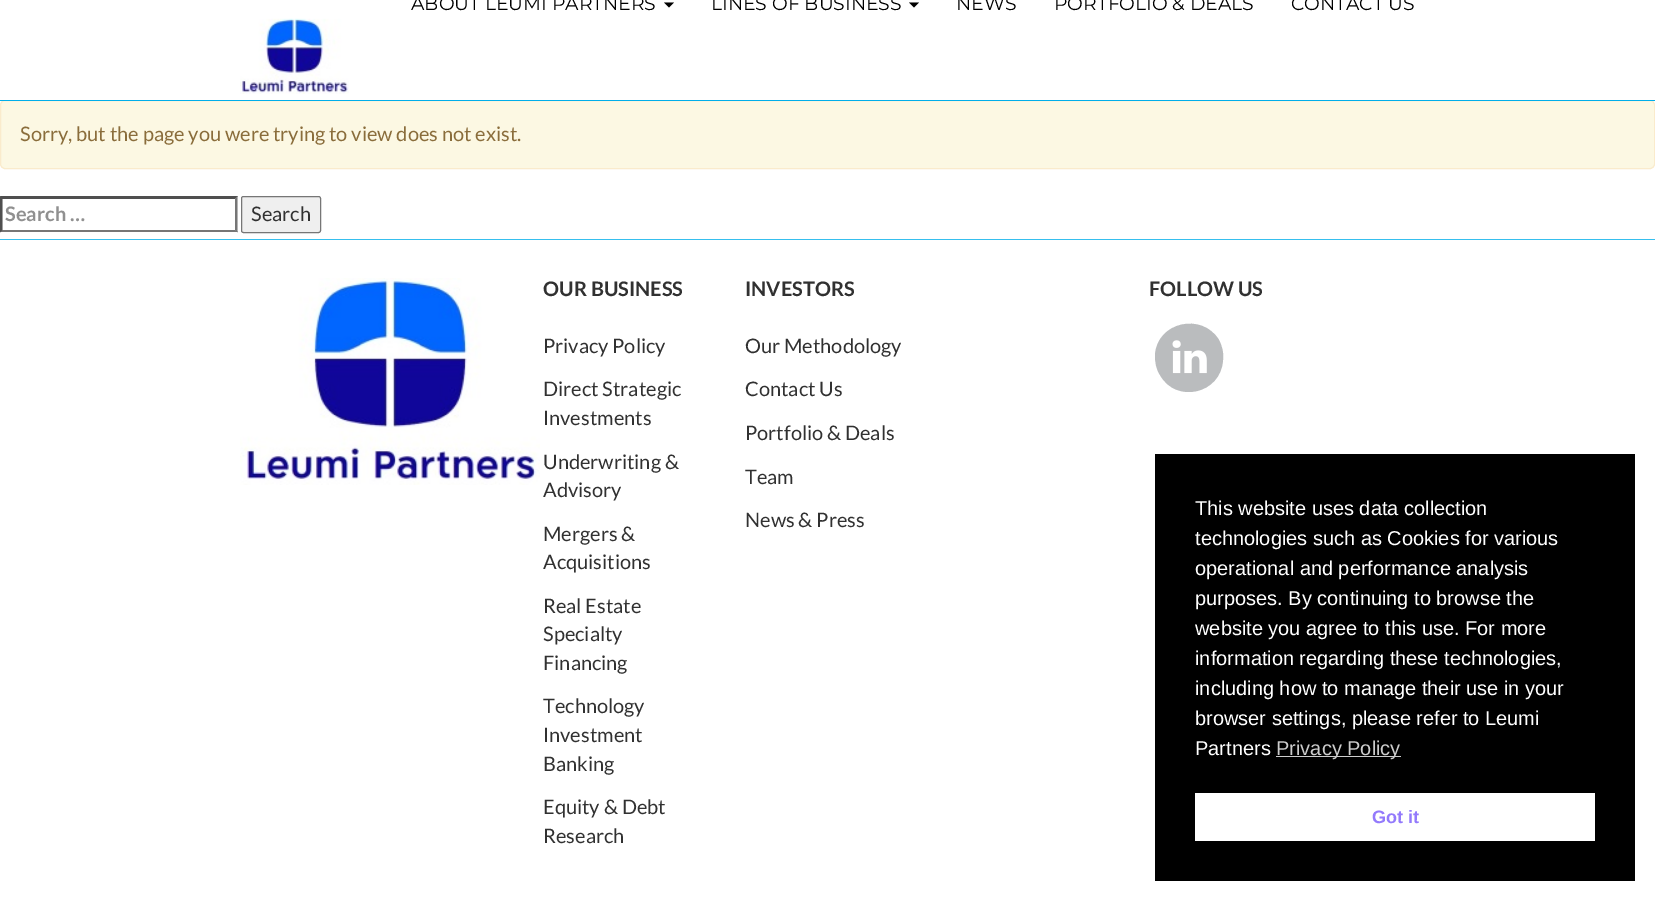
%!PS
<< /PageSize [1655 901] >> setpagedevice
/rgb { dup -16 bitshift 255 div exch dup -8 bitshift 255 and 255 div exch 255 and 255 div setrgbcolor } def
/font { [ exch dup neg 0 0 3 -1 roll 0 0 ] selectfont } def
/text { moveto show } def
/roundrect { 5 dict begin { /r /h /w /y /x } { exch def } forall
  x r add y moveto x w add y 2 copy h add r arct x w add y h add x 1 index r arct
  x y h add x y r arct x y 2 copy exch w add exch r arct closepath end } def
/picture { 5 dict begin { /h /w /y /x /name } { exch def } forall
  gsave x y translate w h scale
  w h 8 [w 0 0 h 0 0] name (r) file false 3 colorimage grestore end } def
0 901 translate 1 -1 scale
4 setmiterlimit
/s1 { /Montserrat-Thin 18.75 font 16#000000 rgb } def
/s2 { /Lato-Regular 20 font 16#8A6D3B rgb } def
/s3 { /Lato-Bold 20 font 16#909090 rgb } def
/s4 { /Lato-Regular 20 font 16#313131 rgb } def
/s5 { /Lato-Bold 20 font 16#313131 rgb } def
/s6 { /LiberationSans-Regular 20 font 16#FFFFFF rgb } def
/s7 { /LiberationSans-Regular 20 font 16#CCCCCC rgb } def
/s8 { /LiberationSans-Bold 18 font 16#937AFC rgb } def
16#FFFFFF rgb
0 0 1655 901 rectfill
16#FCF8E3 rgb
0.5 100.5 1654 68 4.5 roundrect gsave fill grestore
16#FAEBCC rgb
stroke
16#00AEEA rgb
0 100 1655 1 rectfill
s1
(ABOUT LEUMI PARTNERS) 411 10 text
664 2.5 moveto 674 2.5 lineto 669 7.5 lineto closepath fill
(LINES OF BUSINESS) 711 10 text
909 2.5 moveto 919 2.5 lineto 914 7.5 lineto closepath fill
(NEWS) 956 10 text
(PORTFOLIO & DEALS) 1054 10 text
(CONTACT US) 1291 10 text
(pic1.raw) 240 18 109 76 picture
s2
(Sorry, but the page you were trying to view does not exist.) 20 141 text
16#4F4F4F rgb
0 196 moveto 238 196 lineto 235 199 lineto 2 199 lineto closepath fill
16#767676 rgb
237.5 196 moveto 237.5 232.5 lineto 235 230 lineto 235 199 lineto closepath fill
238 232 moveto 0 232 lineto 2 230 lineto 235 230 lineto closepath fill
16#4F4F4F rgb
0 232.5 moveto 0 196 lineto 2.5 199 lineto 2.5 230 lineto closepath fill
s3
(Search …) 5 221 text
16#EFEFEF rgb
241.5 196.5 79 36 2 roundrect gsave fill grestore
16#767676 rgb
stroke
s4
(Search) 251 221 text
16#36BFEE rgb
0 239 1655 1 rectfill
(pic2.raw) 240 278 300 207 picture
s5
(OUR BUSINESS) 543 296 text
s4
(Privacy Policy) 543 353 text
(Direct Strategic) 543 396 text
(Investments) 543 425 text
(Underwriting &) 543 469 text
(Advisory) 543 497 text
(Mergers &) 543 541 text
(Acquisitions) 543 569 text
(Real Estate) 543 613 text
(Specialty) 543 641 text
(Financing) 543 670 text
(Technology) 543 713 text
(Investment) 543 742 text
(Banking) 543 771 text
(Equity & Debt) 543 814 text
(Research) 543 843 text
s5
(INVESTORS) 745 296 text
s4
(Our Methodology) 745 353 text
(Contact Us) 745 396 text
(Portfolio & Deals) 745 440 text
(Team) 745 484 text
(News & Press) 745 527 text
s5
(FOLLOW US) 1149 296 text
16#BABCBE rgb
1219 340 moveto 1222 346 1224 353 1223 360 curveto 1221 394 1176 404 1160 375 curveto 1156 369 1155 362 1155 355 curveto 1157 322 1202 312 1219 340 curveto closepath fill
(pic3.raw) 1172 340 35 34 picture
16#000000 rgb
1155 454 480 427 rectfill
s6
(This website uses data collection) 1195 515 text
(technologies such as Cookies for various) 1195 545 text
(operational and performance analysis) 1195 575 text
(purposes. By continuing to browse the) 1195 605 text
(website you agree to this use. For more) 1195 635 text
(information regarding these technologies,) 1195 665 text
(including how to manage their use in your) 1195 695 text
(browser settings, please refer to Leumi) 1195 725 text
(Partners) 1195 755 text
16#CCCCCC rgb
1276 756 125 1 rectfill
(Privacy Policy) 1276 755 text
16#FFFFFF rgb
1195 793 400 48 rectfill
s8
(Got it) 1372 823 text
showpage
